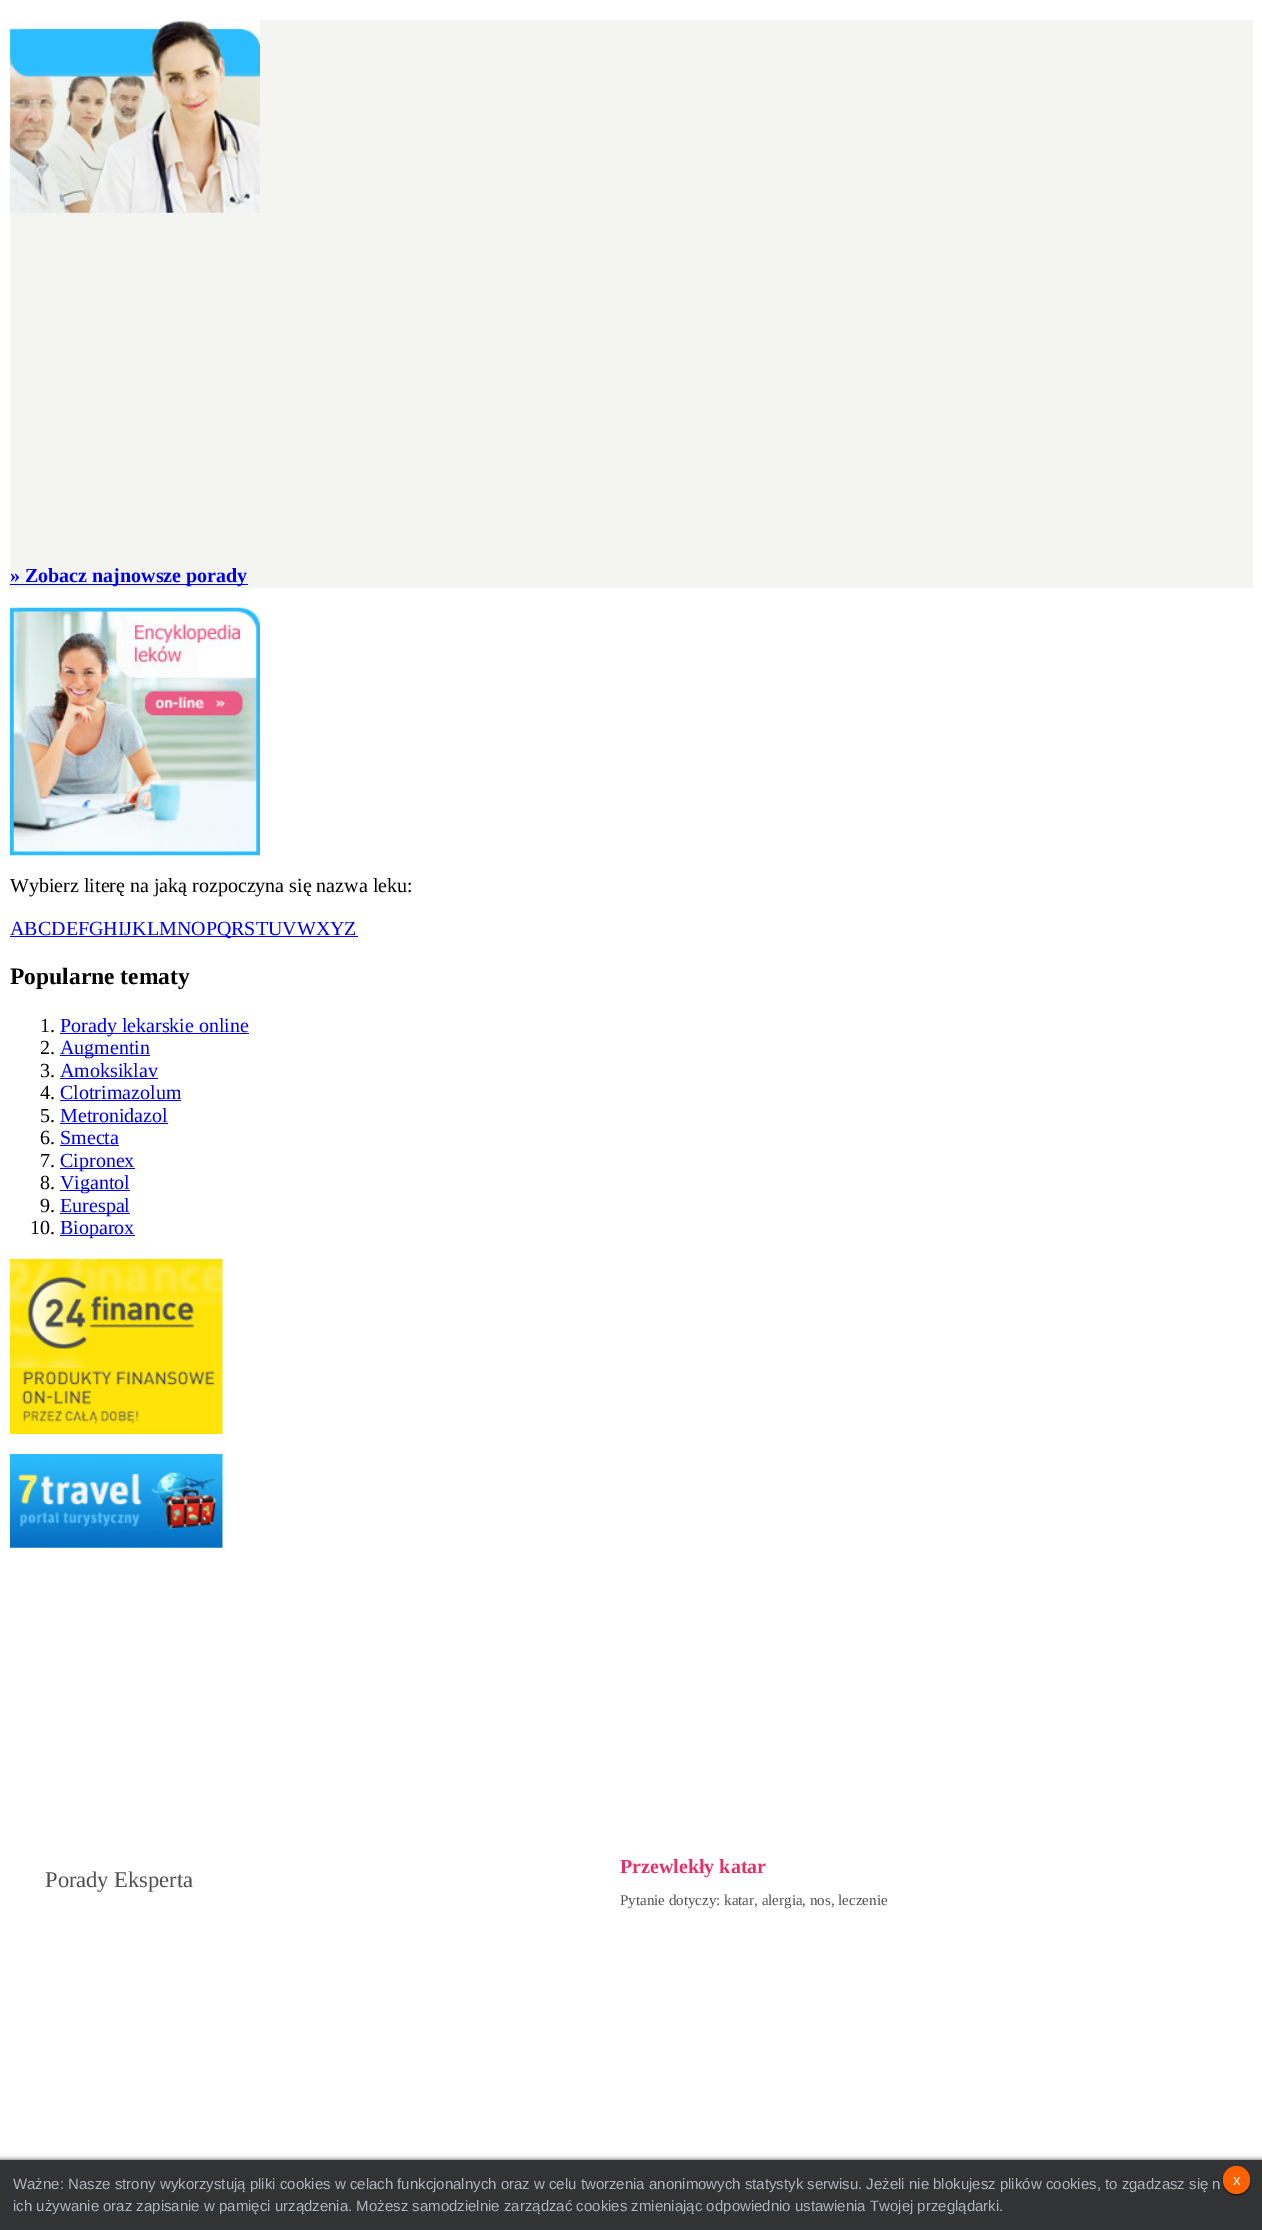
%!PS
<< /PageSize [1262 2230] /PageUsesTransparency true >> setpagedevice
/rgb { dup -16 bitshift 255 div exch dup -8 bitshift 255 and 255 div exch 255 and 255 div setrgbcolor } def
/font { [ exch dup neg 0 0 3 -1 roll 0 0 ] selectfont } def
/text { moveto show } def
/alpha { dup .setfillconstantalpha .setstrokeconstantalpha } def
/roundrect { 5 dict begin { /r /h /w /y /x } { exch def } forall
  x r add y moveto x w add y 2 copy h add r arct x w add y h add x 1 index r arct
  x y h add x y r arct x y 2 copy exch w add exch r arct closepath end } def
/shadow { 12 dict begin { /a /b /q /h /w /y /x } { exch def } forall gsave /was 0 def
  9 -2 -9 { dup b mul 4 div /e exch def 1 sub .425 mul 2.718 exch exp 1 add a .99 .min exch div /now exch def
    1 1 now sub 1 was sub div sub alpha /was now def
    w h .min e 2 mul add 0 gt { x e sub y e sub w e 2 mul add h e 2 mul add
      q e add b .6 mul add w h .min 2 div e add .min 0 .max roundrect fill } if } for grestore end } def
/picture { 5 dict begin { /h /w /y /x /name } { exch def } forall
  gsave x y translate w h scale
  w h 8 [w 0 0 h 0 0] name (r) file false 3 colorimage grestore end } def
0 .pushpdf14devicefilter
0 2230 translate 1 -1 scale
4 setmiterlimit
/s1 { /LiberationSerif-Bold 20 font 16#0000EE rgb } def
/s2 { /LiberationSerif-Regular 20 font 16#000000 rgb } def
/s3 { /LiberationSerif-Regular 20 font 16#0000EE rgb } def
/s4 { /LiberationSerif-Bold 23.5 font 16#000000 rgb } def
/s5 { /LiberationSerif-Regular 22.5 font 16#4F4F4F rgb } def
/s6 { /LiberationSerif-Bold 20 font 16#E43066 rgb } def
/s7 { /LiberationSerif-Regular 15 font 16#4F4F4F rgb } def
/s8 { /LiberationSans-Regular 15 font 16#AFB4BC rgb } def
/s9 { /LiberationSans-Regular 15 font 16#FFFFFF rgb } def
16#FFFFFF rgb
0 0 1262 2230 rectfill
16#F4F5F0 rgb
10 20 1243 568 rectfill
(pic1.raw) 10 20 250 193 picture
16#0000EE rgb
10 584 238 1 rectfill
s1
(» Zobacz najnowsze porady) 10 582 text
(pic2.raw) 10 607 250 249 picture
s2
(Wybierz literę na jaką rozpoczyna się nazwa leku:) 10 892 text
16#0000EE rgb
10 936 348 1 rectfill
(ABCDEFGHIJKLMNOPQRSTUVWXYZ) 10 935 text
s4
(Popularne tematy) 10 984 text
s2
(1.) 40 1032 text
16#0000EE rgb
60 1033 189 1 rectfill
(Porady lekarskie online) 60 1032 text
s2
(2.) 40 1054 text
16#0000EE rgb
60 1055 90 1 rectfill
(Augmentin) 60 1054 text
s2
(3.) 40 1077 text
s3
(Amoksiklav) 60 1077 text
60 1078 98 1 rectfill
s2
(4.) 40 1099 text
s3
(Clotrimazolum) 60 1099 text
60 1100 121 1 rectfill
s2
(5.) 40 1122 text
s3
(Metronidazol) 60 1122 text
60 1123 108 1 rectfill
s2
(6.) 40 1144 text
s3
(Smecta) 60 1144 text
60 1145 59 1 rectfill
s2
(7.) 40 1167 text
16#0000EE rgb
60 1168 75 1 rectfill
(Cipronex) 60 1167 text
s2
(8.) 40 1189 text
16#0000EE rgb
60 1190 70 1 rectfill
(Vigantol) 60 1189 text
s2
(9.) 40 1212 text
16#0000EE rgb
60 1213 70 1 rectfill
(Eurespal) 60 1212 text
s2
(10.) 30 1234 text
16#0000EE rgb
60 1235 75 1 rectfill
(Bioparox) 60 1234 text
(pic3.raw) 10 1259 213 175 picture
(pic4.raw) 10 1454 213 94 picture
s5
(Porady Eksperta) 45 1887 text
s6
(Przewlekły katar) 620 1873 text
s7
(Pytanie dotyczy: katar, alergia, nos, leczenie) 620 1905 text
16#000000 rgb
0 2159 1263 70 0 2 0.5 shadow
16#323334 rgb
0 2160 1262 70 rectfill
s8
(Ważne: Nasze strony wykorzystują pliki cookies w celach funkcjonalnych oraz w celu tworzenia anonimowych statystyk serwisu. Jeżeli nie blokujesz plików cookies, to zgadzasz się n) 13 2189 text
(ich używanie oraz zapisanie w pamięci urządzenia. Możesz samodzielnie zarządzać cookies zmieniając odpowiednio ustawienia Twojej przeglądarki.) 13 2211 text
16#000000 rgb
1223 2168 27 27 13.5 1 0.75 shadow
16#FF6000 rgb
1223 2166 27 28 13.5 roundrect fill
s9
(x) 1233 2185 text
.poppdf14devicefilter showpage
